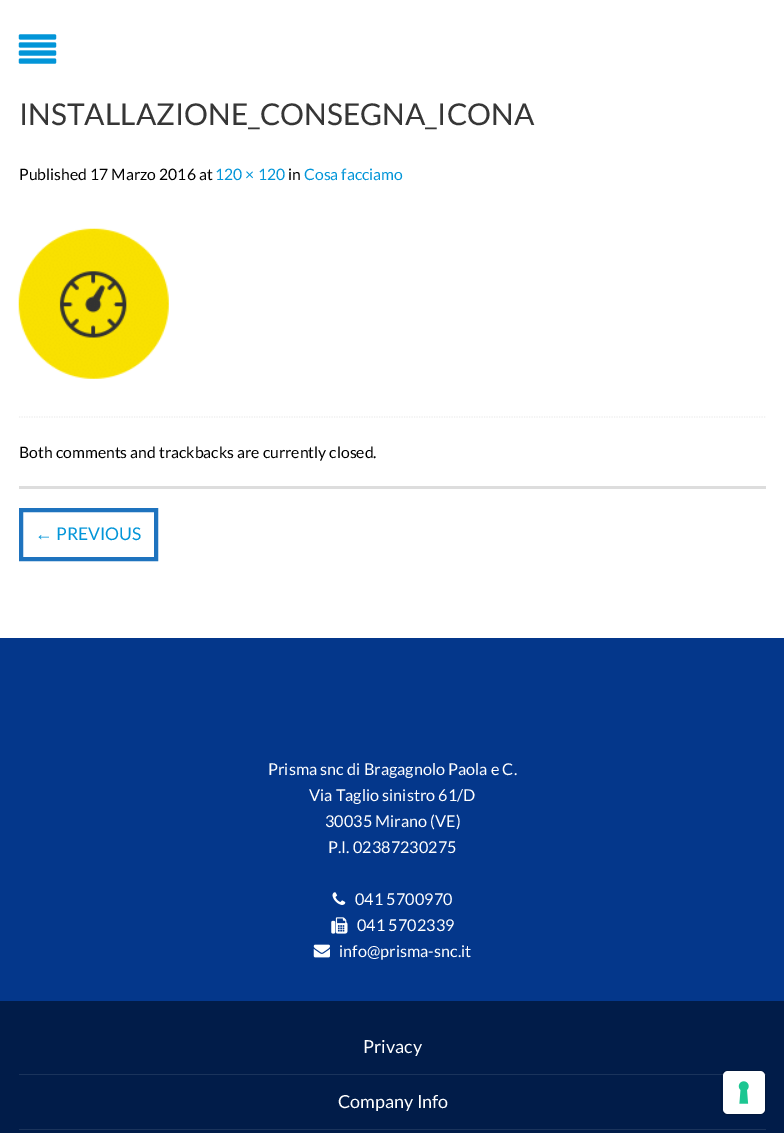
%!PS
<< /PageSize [784 1133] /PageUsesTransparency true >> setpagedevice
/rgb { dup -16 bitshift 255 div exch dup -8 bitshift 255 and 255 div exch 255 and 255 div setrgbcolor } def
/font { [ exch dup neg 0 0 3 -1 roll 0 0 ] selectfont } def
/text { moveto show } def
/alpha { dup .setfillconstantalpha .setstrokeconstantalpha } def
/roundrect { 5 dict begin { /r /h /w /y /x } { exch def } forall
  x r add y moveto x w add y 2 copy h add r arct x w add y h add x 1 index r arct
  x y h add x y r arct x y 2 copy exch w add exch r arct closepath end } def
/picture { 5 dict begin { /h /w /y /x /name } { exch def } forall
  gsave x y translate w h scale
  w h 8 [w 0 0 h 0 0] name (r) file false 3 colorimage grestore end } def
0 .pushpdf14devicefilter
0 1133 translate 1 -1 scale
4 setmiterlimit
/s1 { /Lato-Regular 30 font 16#363636 rgb } def
/s2 { /Lato-Regular 15.75 font 16#000000 rgb } def
/s3 { /Lato-Regular 15.75 font 16#0295D8 rgb } def
/s4 { /LiberationSerif-Regular 17.5 font 16#0295D8 rgb } def
/s5 { /Lato-Regular 17.5 font 16#0295D8 rgb } def
/s6 { /Lato-Regular 16.25 font 16#FFFFFF rgb } def
/s7 { /Lato-Regular 18 font 16#FFFFFF rgb } def
16#FFFFFF rgb
0 0 784 1133 rectfill
(pic1.raw) 18 34 39 30 picture
s1
(INSTALLAZIONE_CONSEGNA_ICONA) 19 125 text
s2
(Published 17 Marzo 2016 at) 19 180 text
s3
(120 × 120) 215 180 text
s2
(in) 288 180 text
s3
(Cosa facciamo) 304 180 text
(pic2.raw) 18 228 151 151 picture
16#EEEEEE rgb
1.2 setlinewidth
[1.25 1.25] 0 setdash
19 417 moveto 766 417 lineto stroke
16#DDDDDD rgb
19 486 747 3 rectfill
s2
(Both comments and trackbacks are currently closed.) 19 458 text
16#1E73BE rgb
4 setlinewidth
[] 0 setdash
21 510 135 49 rectstroke
s4
(←) 35 540 text
s5
(PREVIOUS) 56 540 text
16#04378B rgb
0 638 784 363 rectfill
s6
(Prisma snc di Bragagnolo Paola e C.) 268 775 text
(Via Taglio sinistro 61/D) 309 801 text
(30035 Mirano \(VE\)) 325 827 text
(P.I. 02387230275) 328 853 text
(pic3.raw) 332 892 14 13 picture
(041 5700970) 355 905 text
(pic4.raw) 331 917 17 17 picture
(041 5702339) 357 931 text
(pic5.raw) 313 944 17 14 picture
(info@prisma-snc.it) 339 957 text
16#011C49 rgb
0 1001 784 132 rectfill
16#1A335B rgb
19 1074 747 1 rectfill
s7
(Privacy) 363 1053 text
16#1A335B rgb
19 1129 747 1 rectfill
s7
(Company Info) 338 1108 text
0.15 alpha
16#000000 rgb
1 setlinewidth
721.5 1070.5 44 44 5.5 roundrect stroke
1 alpha
16#FFFFFF rgb
723 1071 42 43 5 roundrect fill
(pic6.raw) 738 1081 11 23 picture
.poppdf14devicefilter showpage
